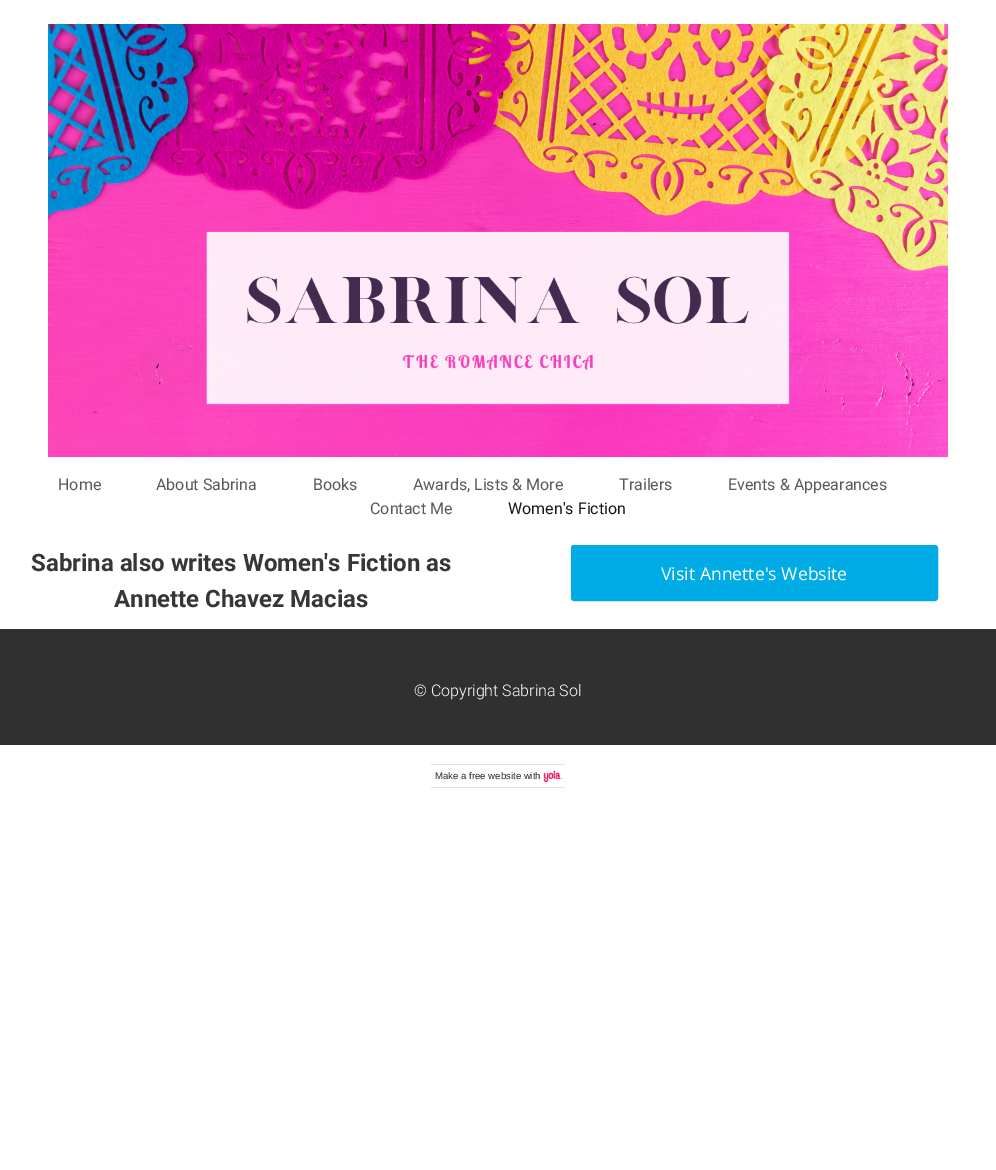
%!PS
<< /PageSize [996 1170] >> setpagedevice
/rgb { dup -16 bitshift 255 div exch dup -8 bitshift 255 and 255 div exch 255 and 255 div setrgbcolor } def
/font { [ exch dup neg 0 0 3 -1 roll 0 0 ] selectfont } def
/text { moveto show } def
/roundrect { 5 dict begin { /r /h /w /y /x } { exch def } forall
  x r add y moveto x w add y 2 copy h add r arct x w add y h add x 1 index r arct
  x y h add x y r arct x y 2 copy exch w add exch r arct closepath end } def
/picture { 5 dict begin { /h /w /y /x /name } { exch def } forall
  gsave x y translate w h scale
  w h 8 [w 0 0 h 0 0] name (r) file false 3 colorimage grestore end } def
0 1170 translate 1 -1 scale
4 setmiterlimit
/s1 { /Roboto-Regular 16 font 16#595959 rgb } def
/s2 { /Roboto-Regular 16 font 16#171717 rgb } def
/s3 { /Roboto-Bold 24 font 16#363636 rgb } def
/s4 { /OpenSans-Regular 17.6 font 16#FFFFFF rgb } def
/s5 { /Roboto-Light 16 font 16#FFFFFF rgb } def
/s6 { /LiberationSans-Regular 9.6 font 16#222222 rgb } def
16#FFFFFF rgb
0 0 996 1170 rectfill
(pic1.raw) 48 24 900 433 picture
s1
(Home) 58 490 text
(About Sabrina) 156 490 text
(Books) 313 490 text
(Awards, Lists & More) 413 490 text
(Trailers) 619 490 text
(Events & Appearances) 728 490 text
(Contact Me) 370 514 text
s2
(Women's Fiction) 508 514 text
s3
(Sabrina also writes Women's Fiction as) 31 571 text
(Annette Chavez Macias) 114 607 text
16#00ACE6 rgb
572 546 365 54 2 roundrect gsave fill grestore
2 setlinewidth
stroke
s4
(Visit Annette's Website) 661 580 text
16#303030 rgb
0 629 996 116 rectfill
s5
(© Copyright Sabrina Sol) 414 696 text
(pic2.raw) 543 770 20 13 picture
16#E1E1E1 rgb
431 764 134 1 rectfill
431 787 134 1 rectfill
s6
(Make a free website with) 435 779 text
showpage
